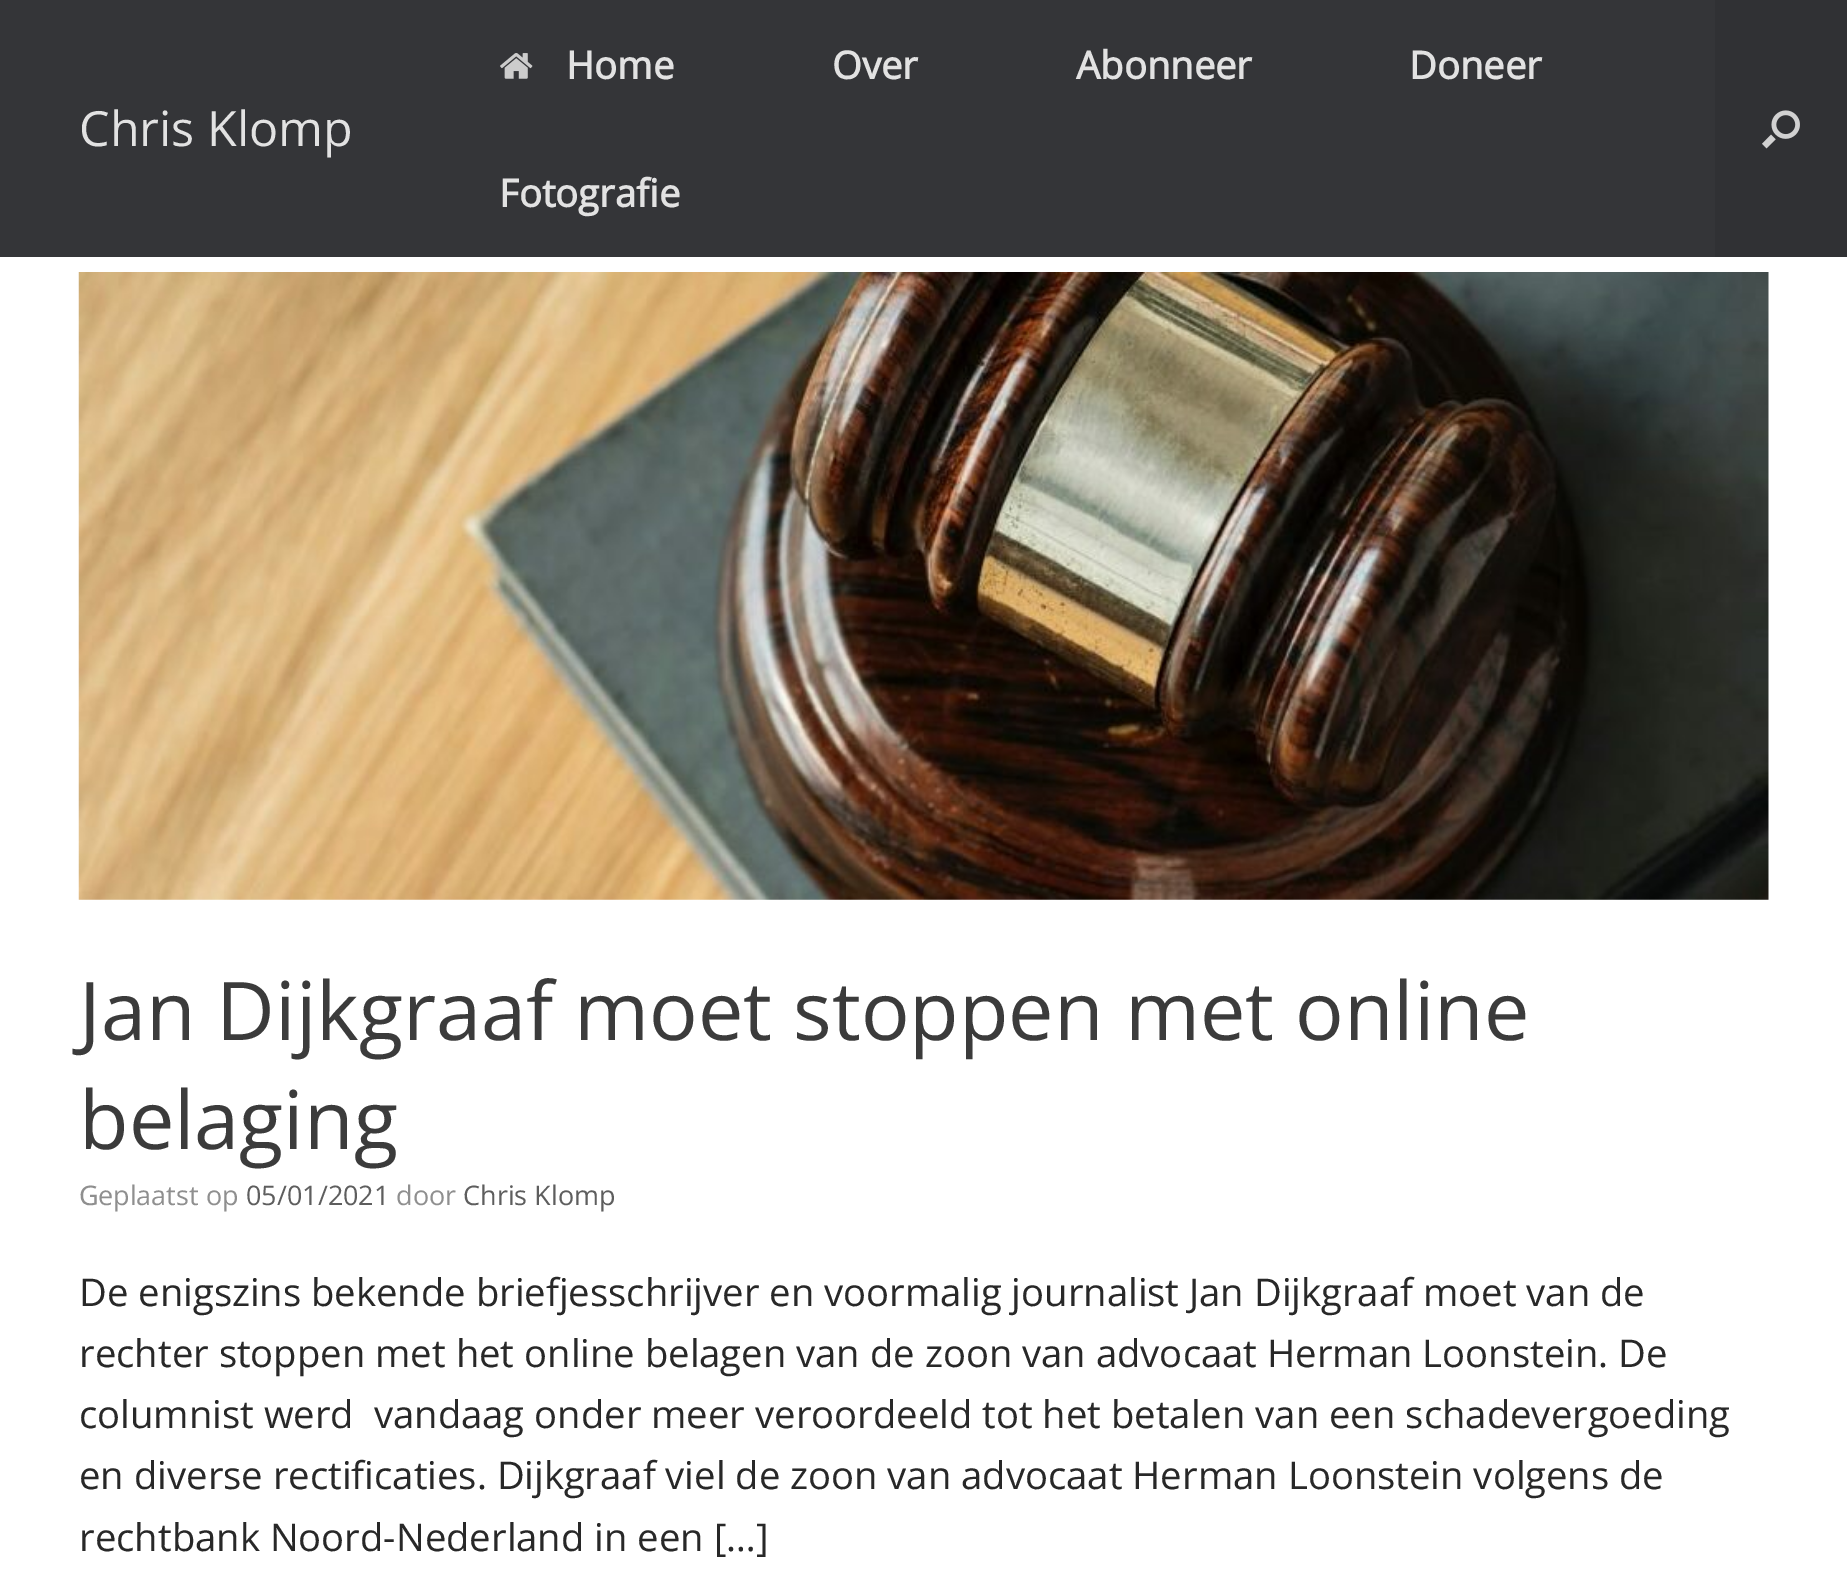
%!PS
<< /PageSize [1847 1573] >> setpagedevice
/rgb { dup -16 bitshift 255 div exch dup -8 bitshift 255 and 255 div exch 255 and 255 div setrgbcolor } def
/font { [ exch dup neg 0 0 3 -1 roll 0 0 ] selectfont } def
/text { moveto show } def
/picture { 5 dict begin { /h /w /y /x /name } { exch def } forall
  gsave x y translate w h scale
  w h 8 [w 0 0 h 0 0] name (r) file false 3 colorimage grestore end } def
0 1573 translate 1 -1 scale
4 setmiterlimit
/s1 { /OpenSans-Regular 48.5 font 16#E2E2E2 rgb } def
/s2 { /OpenSans-Bold 38.25 font 16#E2E2E2 rgb } def
/s3 { /OpenSans-Regular 81 font 16#3B3B3B rgb } def
/s4 { /NotoSans-Regular 27 font 16#8F8F8F rgb } def
/s5 { /OpenSans-Regular 27 font 16#8F8F8F rgb } def
/s6 { /OpenSans-Regular 27 font 16#5E5E5E rgb } def
/s7 { /OpenSans-Regular 38.25 font 16#282828 rgb } def
16#FFFFFF rgb
0 0 1847 1573 rectfill
16#343538 rgb
0 0 1715 257 rectfill
s1
(Chris Klomp) 79 146 text
(pic1.raw) 500 53 33 26 picture
s2
(Home) 566 79 text
(Over) 832 79 text
(Abonneer) 1076 79 text
(Doneer) 1409 79 text
(Fotografie) 499 207 text
16#303134 rgb
1715 0 132 257 rectfill
(pic2.raw) 1762 110 38 39 picture
(pic3.raw) 78 272 1691 628 picture
s3
(Jan Dijkgraaf moet stoppen met online) 79 1040 text
(belaging) 79 1149 text
s4
(G) 79 1205 text
s5
(eplaatst op) 98 1205 text
s6
(05/01/2021) 246 1205 text
s5
(door) 396 1205 text
s6
(Chris Klomp) 463 1205 text
s7
(De enigszins bekende briefjesschrijver en voormalig journalist Jan Dijkgraaf moet van de) 79 1306 text
(rechter stoppen met het online belagen van de zoon van advocaat Herman Loonstein. De) 79 1367 text
(columnist werd  vandaag onder meer veroordeeld tot het betalen van een schadevergoeding) 79 1428 text
(en diverse rectificaties. Dijkgraaf viel de zoon van advocaat Herman Loonstein volgens de) 79 1489 text
(rechtbank Noord-Nederland in een […]) 79 1551 text
showpage
